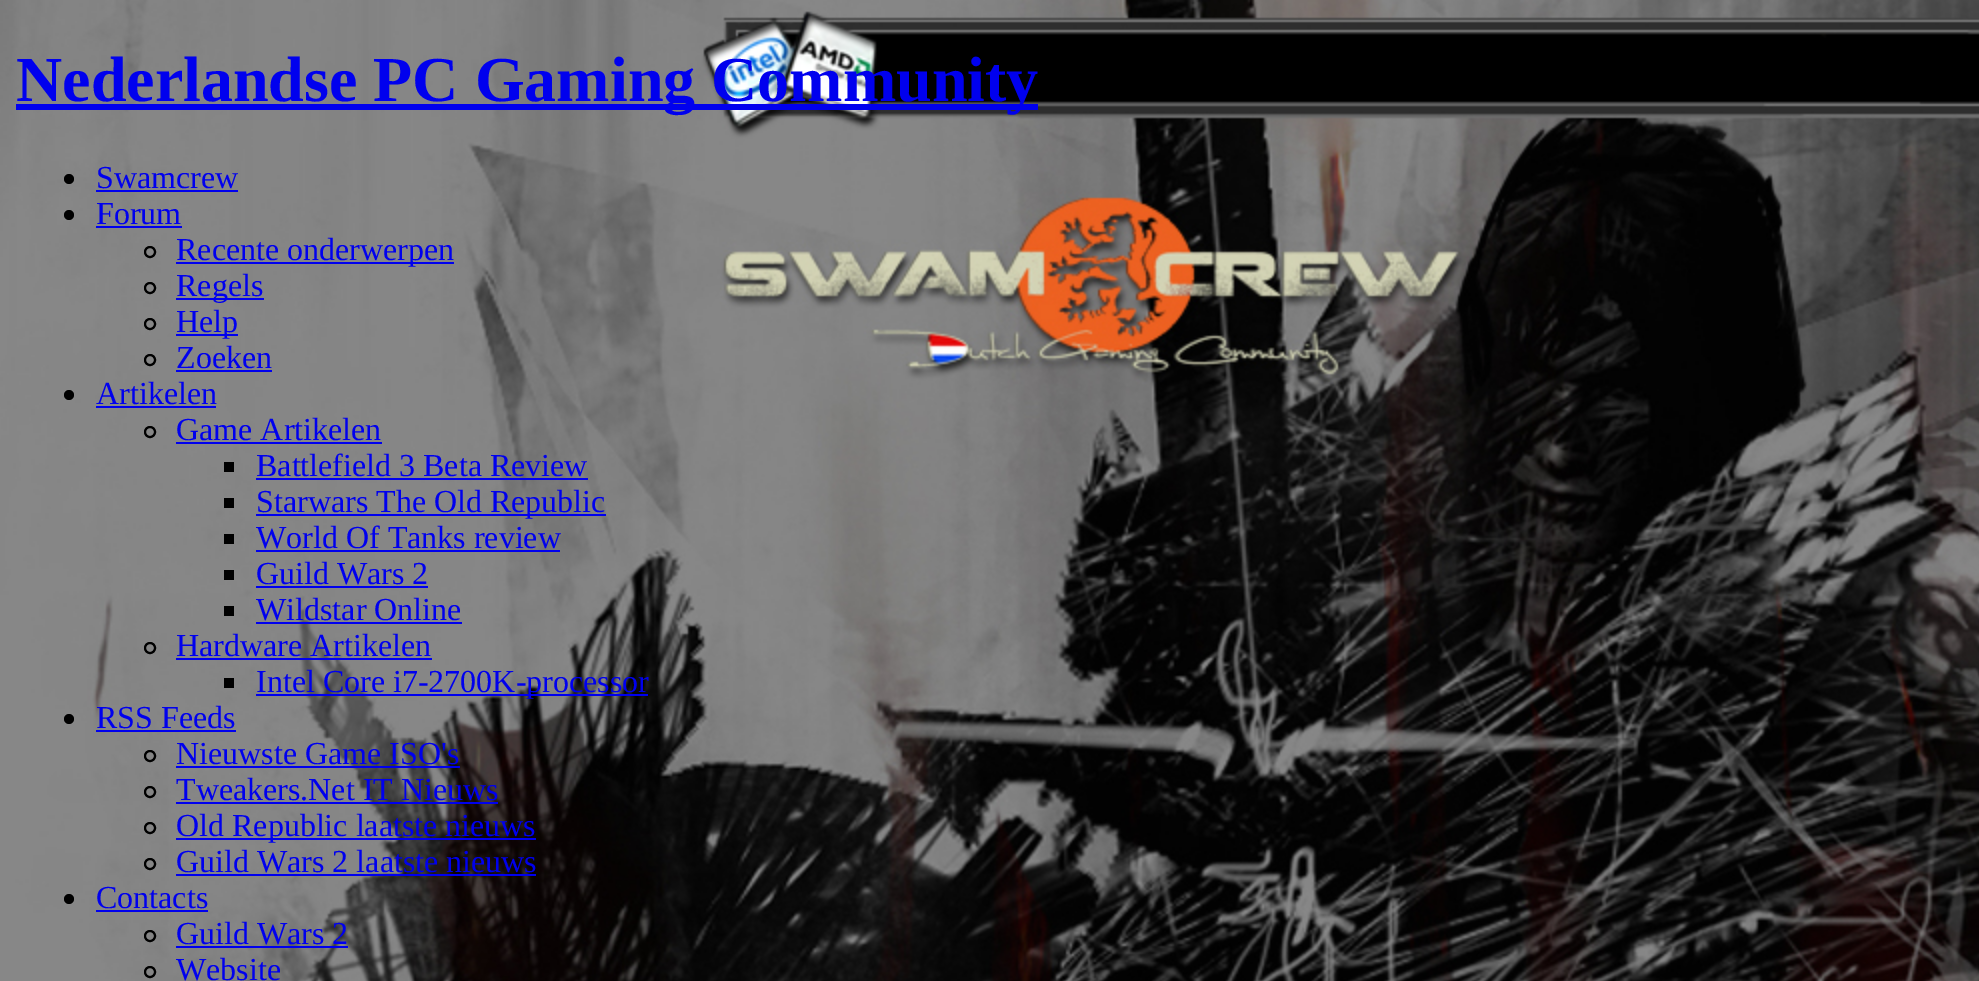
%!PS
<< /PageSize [1979 981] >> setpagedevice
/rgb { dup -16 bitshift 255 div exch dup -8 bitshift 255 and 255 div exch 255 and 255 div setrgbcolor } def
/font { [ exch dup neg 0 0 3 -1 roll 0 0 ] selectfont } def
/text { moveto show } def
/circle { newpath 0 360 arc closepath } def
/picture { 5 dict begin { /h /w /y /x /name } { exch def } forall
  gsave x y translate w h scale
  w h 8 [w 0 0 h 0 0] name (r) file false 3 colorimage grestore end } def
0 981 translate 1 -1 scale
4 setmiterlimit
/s1 { /LiberationSerif-Bold 64 font 16#0000EE rgb } def
/s2 { /LiberationSerif-Regular 32 font 16#0000EE rgb } def
16#FFFFFF rgb
0 0 1979 981 rectfill
(pic1.raw) 0 0 1979 981 picture
16#0000EE rgb
16 104 1022 6 rectfill
s1
(Nederlandse PC Gaming Community) 16 101 text
16#000000 rgb
69 179 5 circle fill
s2
(Swamcrew) 96 188 text
96 190 142 2 rectfill
16#000000 rgb
69 215 5 circle fill
s2
(Forum) 96 224 text
96 226 86 2 rectfill
16#000000 rgb
2 setlinewidth
150 252 5 circle stroke
16#0000EE rgb
176 262 278 2 rectfill
(Recente onderwerpen) 176 260 text
16#000000 rgb
150 288 5 circle stroke
16#0000EE rgb
176 298 88 2 rectfill
(Regels) 176 296 text
16#000000 rgb
150 324 5 circle stroke
16#0000EE rgb
176 334 62 2 rectfill
(Help) 176 332 text
16#000000 rgb
150 360 5 circle stroke
s2
(Zoeken) 176 368 text
176 370 96 2 rectfill
16#000000 rgb
69 395 5 circle fill
s2
(Artikelen) 96 404 text
96 406 120 2 rectfill
16#000000 rgb
150 432 5 circle stroke
s2
(Game Artikelen) 176 440 text
176 442 206 2 rectfill
16#000000 rgb
224 462 10 10 rectfill
s2
(Battlefield 3 Beta Review) 256 476 text
256 478 332 2 rectfill
16#000000 rgb
224 498 10 10 rectfill
16#0000EE rgb
256 514 350 2 rectfill
(Starwars The Old Republic) 256 512 text
16#000000 rgb
224 534 10 10 rectfill
s2
(World Of Tanks review) 256 548 text
256 550 304 2 rectfill
16#000000 rgb
224 570 10 10 rectfill
s2
(Guild Wars 2) 256 584 text
256 586 172 2 rectfill
16#000000 rgb
224 606 10 10 rectfill
s2
(Wildstar Online) 256 620 text
256 622 206 2 rectfill
16#000000 rgb
150 648 5 circle stroke
s2
(Hardware Artikelen) 176 656 text
176 658 256 2 rectfill
16#000000 rgb
224 678 10 10 rectfill
16#0000EE rgb
256 694 392 2 rectfill
(Intel Core i7-2700K-processor) 256 692 text
16#000000 rgb
69 719 5 circle fill
s2
(RSS Feeds) 96 728 text
96 730 140 2 rectfill
16#000000 rgb
150 756 5 circle stroke
s2
(Nieuwste Game ISO's) 176 764 text
176 766 284 2 rectfill
16#000000 rgb
150 792 5 circle stroke
s2
(Tweakers.Net IT Nieuws) 176 800 text
176 802 322 2 rectfill
16#000000 rgb
150 828 5 circle stroke
16#0000EE rgb
176 838 360 2 rectfill
(Old Republic laatste nieuws) 176 836 text
16#000000 rgb
150 864 5 circle stroke
s2
(Guild Wars 2 laatste nieuws) 176 872 text
176 874 360 2 rectfill
16#000000 rgb
69 899 5 circle fill
s2
(Contacts) 96 908 text
96 910 112 2 rectfill
16#000000 rgb
150 936 5 circle stroke
s2
(Guild Wars 2) 176 944 text
176 946 172 2 rectfill
16#000000 rgb
150 972 5 circle stroke
s2
(Website) 176 980 text
showpage
